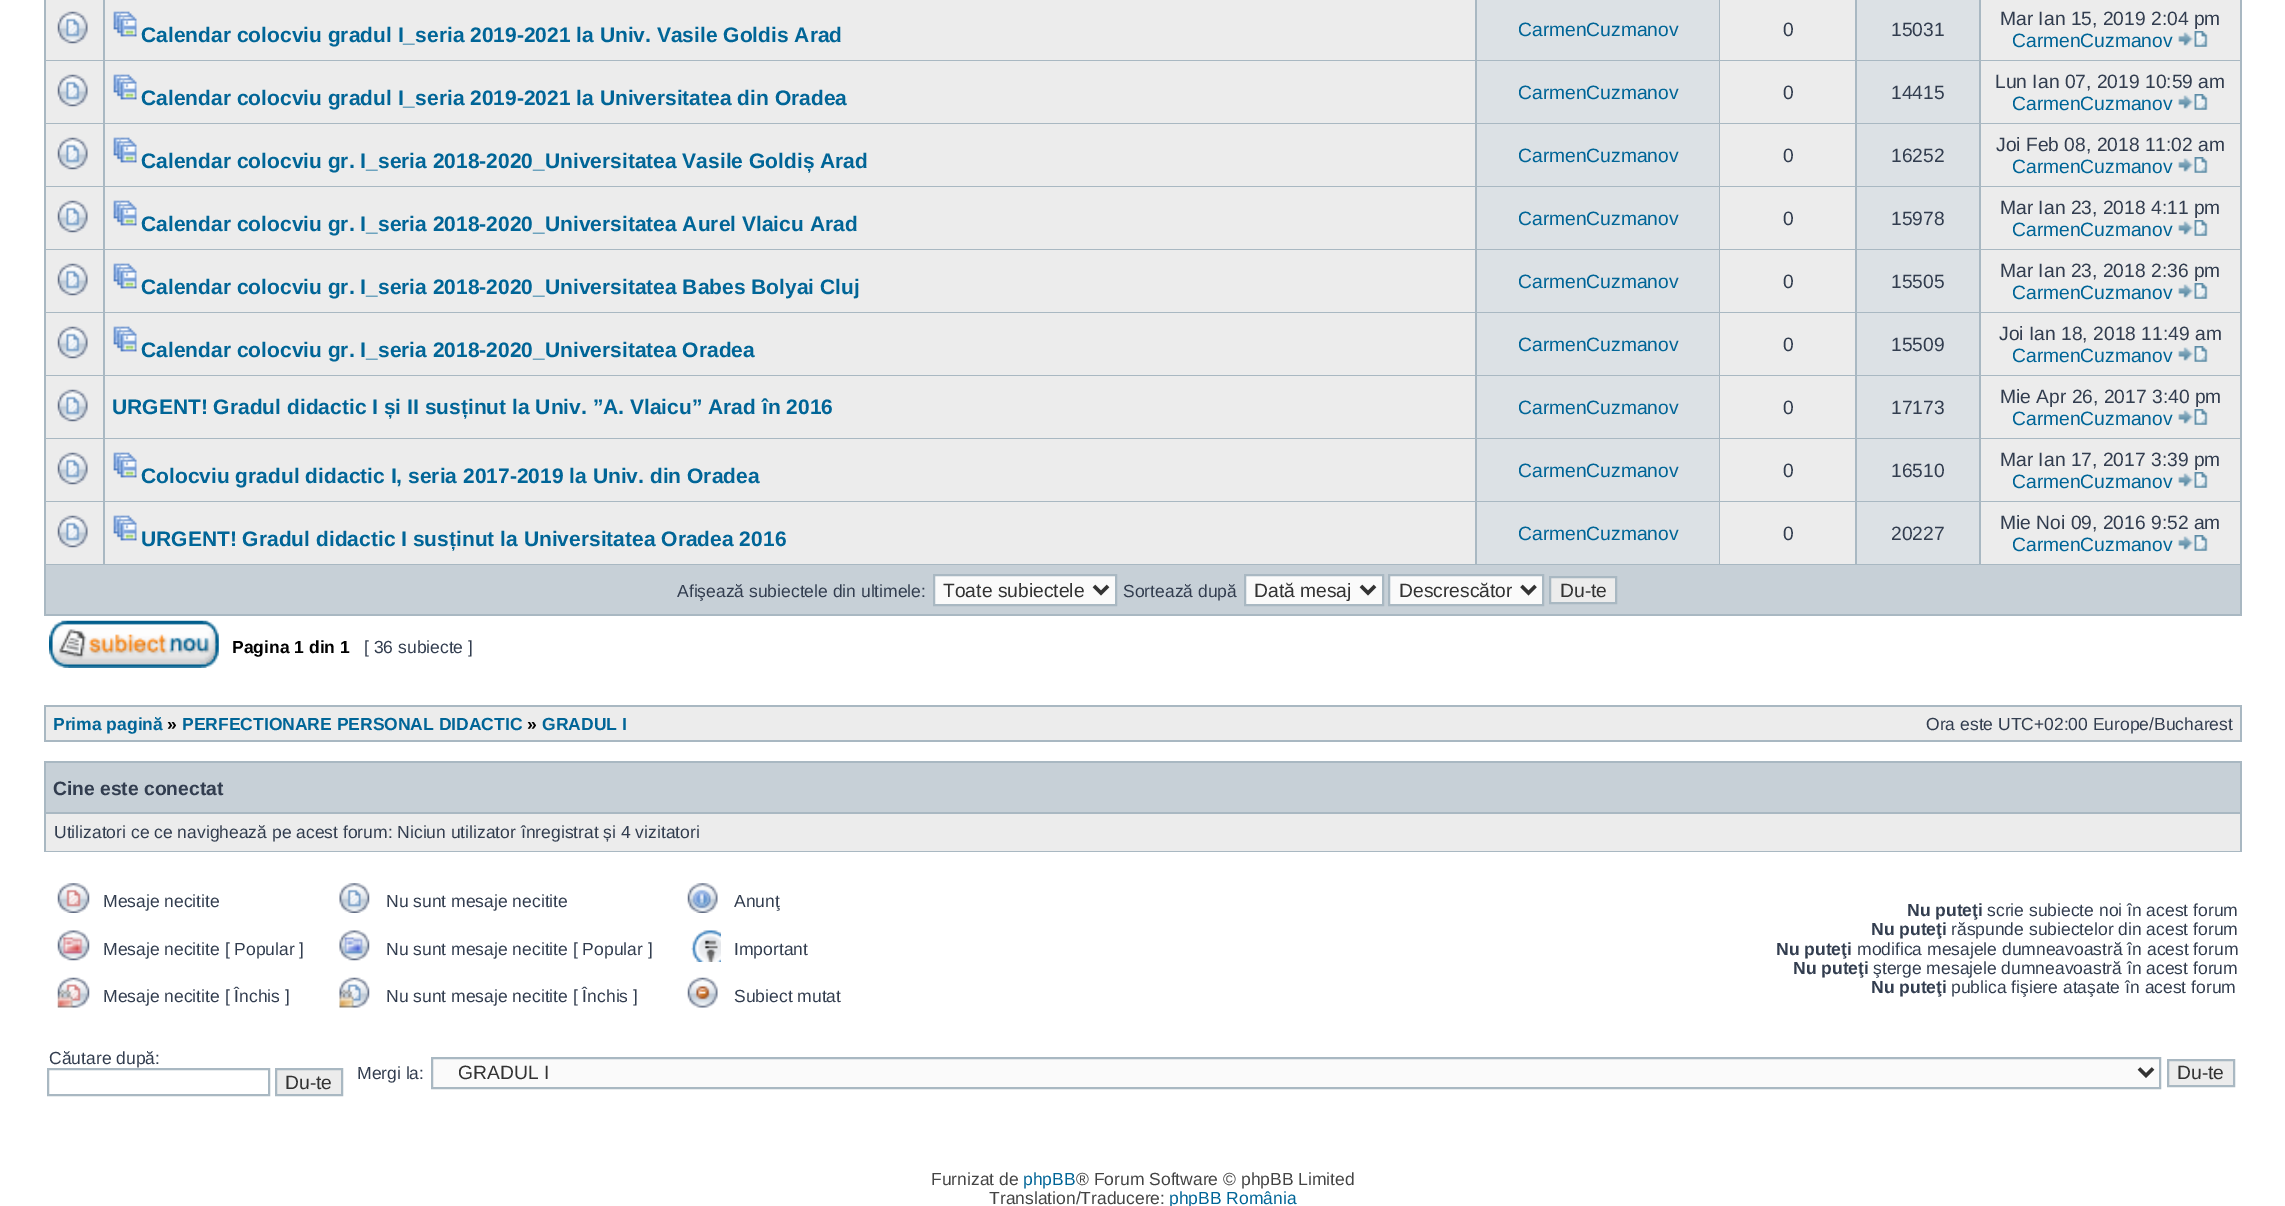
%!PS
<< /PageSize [2285 1206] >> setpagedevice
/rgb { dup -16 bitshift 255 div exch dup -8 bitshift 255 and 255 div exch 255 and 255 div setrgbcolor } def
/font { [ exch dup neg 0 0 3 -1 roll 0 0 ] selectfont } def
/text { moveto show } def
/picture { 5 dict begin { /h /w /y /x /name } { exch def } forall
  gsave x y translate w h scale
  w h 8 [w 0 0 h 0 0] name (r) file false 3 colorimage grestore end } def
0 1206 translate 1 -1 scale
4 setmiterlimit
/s1 { /LiberationSans-Bold 21 font 16#006597 rgb } def
/s2 { /LiberationSans-Regular 19.25 font 16#006597 rgb } def
/s3 { /LiberationSans-Regular 19.25 font 16#323D4F rgb } def
/s4 { /LiberationSans-Regular 17.5 font 16#323D4F rgb } def
/s5 { /LiberationSans-Regular 19.25 font 16#333333 rgb } def
/s6 { /LiberationSans-Bold 17.5 font 16#000000 rgb } def
/s7 { /LiberationSans-Bold 17.5 font 16#006597 rgb } def
/s8 { /LiberationSans-Bold 19.25 font 16#323D4F rgb } def
/s9 { /LiberationSans-Bold 17.5 font 16#323D4F rgb } def
/s10 { /LiberationSans-Regular 17.5 font 16#444444 rgb } def
/s11 { /LiberationSans-Regular 17.5 font 16#006597 rgb } def
16#FFFFFF rgb
0 0 2285 1206 rectfill
16#A9B8C2 rgb
44 0 2198 616 rectfill
16#ECECEC rgb
46 0 57 60 rectfill
(pic1.raw) 57 11 31 33 picture
105 0 1370 60 rectfill
(pic2.raw) 113 11 24 26 picture
s1
(Calendar colocviu gradul I_seria 2019-2021 la Univ. Vasile Goldis Arad) 141 42 text
16#DCE1E5 rgb
1477 0 242 60 rectfill
s2
(CarmenCuzmanov) 1518 36 text
16#ECECEC rgb
1720 0 135 60 rectfill
s3
(0) 1783 36 text
16#DCE1E5 rgb
1857 0 122 60 rectfill
s3
(15031) 1891 36 text
16#ECECEC rgb
1981 0 259 60 rectfill
s3
(Mar Ian 15, 2019 2:04 pm) 2000 25 text
s2
(CarmenCuzmanov) 2012 47 text
(pic3.raw) 2178 31 30 16 picture
16#ECECEC rgb
46 61 57 62 rectfill
(pic1.raw) 57 74 31 33 picture
105 61 1370 62 rectfill
(pic2.raw) 113 74 24 26 picture
s1
(Calendar colocviu gradul I_seria 2019-2021 la Universitatea din Oradea) 141 105 text
16#DCE1E5 rgb
1477 61 242 62 rectfill
s2
(CarmenCuzmanov) 1518 99 text
16#ECECEC rgb
1720 61 135 62 rectfill
s3
(0) 1783 99 text
16#DCE1E5 rgb
1857 61 122 62 rectfill
s3
(14415) 1891 99 text
16#ECECEC rgb
1981 61 259 62 rectfill
s3
(Lun Ian 07, 2019 10:59 am) 1995 88 text
s2
(CarmenCuzmanov) 2012 110 text
(pic3.raw) 2178 94 30 16 picture
16#ECECEC rgb
46 124 57 62 rectfill
(pic1.raw) 57 137 31 33 picture
105 124 1370 62 rectfill
(pic2.raw) 113 137 24 26 picture
s1
(Calendar colocviu gr. I_seria 2018-2020_Universitatea Vasile Goldiș Arad) 141 168 text
16#DCE1E5 rgb
1477 124 242 62 rectfill
s2
(CarmenCuzmanov) 1518 162 text
16#ECECEC rgb
1720 124 135 62 rectfill
s3
(0) 1783 162 text
16#DCE1E5 rgb
1857 124 122 62 rectfill
s3
(16252) 1891 162 text
16#ECECEC rgb
1981 124 259 62 rectfill
s3
(Joi Feb 08, 2018 11:02 am) 1996 151 text
s2
(CarmenCuzmanov) 2012 173 text
(pic3.raw) 2178 157 30 16 picture
16#ECECEC rgb
46 187 57 62 rectfill
(pic1.raw) 57 200 31 33 picture
105 187 1370 62 rectfill
(pic2.raw) 113 200 24 26 picture
s1
(Calendar colocviu gr. I_seria 2018-2020_Universitatea Aurel Vlaicu Arad) 141 231 text
16#DCE1E5 rgb
1477 187 242 62 rectfill
s2
(CarmenCuzmanov) 1518 225 text
16#ECECEC rgb
1720 187 135 62 rectfill
s3
(0) 1783 225 text
16#DCE1E5 rgb
1857 187 122 62 rectfill
s3
(15978) 1891 225 text
16#ECECEC rgb
1981 187 259 62 rectfill
s3
(Mar Ian 23, 2018 4:11 pm) 2000 214 text
s2
(CarmenCuzmanov) 2012 236 text
(pic3.raw) 2178 220 30 16 picture
16#ECECEC rgb
46 250 57 62 rectfill
(pic1.raw) 57 263 31 33 picture
105 250 1370 62 rectfill
(pic2.raw) 113 263 24 26 picture
s1
(Calendar colocviu gr. I_seria 2018-2020_Universitatea Babes Bolyai Cluj) 141 294 text
16#DCE1E5 rgb
1477 250 242 62 rectfill
s2
(CarmenCuzmanov) 1518 288 text
16#ECECEC rgb
1720 250 135 62 rectfill
s3
(0) 1783 288 text
16#DCE1E5 rgb
1857 250 122 62 rectfill
s3
(15505) 1891 288 text
16#ECECEC rgb
1981 250 259 62 rectfill
s3
(Mar Ian 23, 2018 2:36 pm) 2000 277 text
s2
(CarmenCuzmanov) 2012 299 text
(pic3.raw) 2178 283 30 16 picture
16#ECECEC rgb
46 313 57 62 rectfill
(pic1.raw) 57 326 31 33 picture
105 313 1370 62 rectfill
(pic2.raw) 113 326 24 26 picture
s1
(Calendar colocviu gr. I_seria 2018-2020_Universitatea Oradea) 141 357 text
16#DCE1E5 rgb
1477 313 242 62 rectfill
s2
(CarmenCuzmanov) 1518 351 text
16#ECECEC rgb
1720 313 135 62 rectfill
s3
(0) 1783 351 text
16#DCE1E5 rgb
1857 313 122 62 rectfill
s3
(15509) 1891 351 text
16#ECECEC rgb
1981 313 259 62 rectfill
s3
(Joi Ian 18, 2018 11:49 am) 1999 340 text
s2
(CarmenCuzmanov) 2012 362 text
(pic3.raw) 2178 346 30 16 picture
16#ECECEC rgb
46 376 57 62 rectfill
(pic1.raw) 57 389 31 33 picture
105 376 1370 62 rectfill
s1
(URGENT! Gradul didactic I și II susținut la Univ. ”A. Vlaicu” Arad în 2016) 112 414 text
16#DCE1E5 rgb
1477 376 242 62 rectfill
s2
(CarmenCuzmanov) 1518 414 text
16#ECECEC rgb
1720 376 135 62 rectfill
s3
(0) 1783 414 text
16#DCE1E5 rgb
1857 376 122 62 rectfill
s3
(17173) 1891 414 text
16#ECECEC rgb
1981 376 259 62 rectfill
s3
(Mie Apr 26, 2017 3:40 pm) 2000 403 text
s2
(CarmenCuzmanov) 2012 425 text
(pic3.raw) 2178 409 30 16 picture
16#ECECEC rgb
46 439 57 62 rectfill
(pic4.raw) 57 452 31 33 picture
105 439 1370 62 rectfill
(pic2.raw) 113 452 24 26 picture
s1
(Colocviu gradul didactic I, seria 2017-2019 la Univ. din Oradea) 141 483 text
16#DCE1E5 rgb
1477 439 242 62 rectfill
s2
(CarmenCuzmanov) 1518 477 text
16#ECECEC rgb
1720 439 135 62 rectfill
s3
(0) 1783 477 text
16#DCE1E5 rgb
1857 439 122 62 rectfill
s3
(16510) 1891 477 text
16#ECECEC rgb
1981 439 259 62 rectfill
s3
(Mar Ian 17, 2017 3:39 pm) 2000 466 text
s2
(CarmenCuzmanov) 2012 488 text
(pic3.raw) 2178 472 30 16 picture
16#ECECEC rgb
46 502 57 62 rectfill
(pic1.raw) 57 515 31 33 picture
105 502 1370 62 rectfill
(pic2.raw) 113 515 24 26 picture
s1
(URGENT! Gradul didactic I susținut la Universitatea Oradea 2016) 141 546 text
16#DCE1E5 rgb
1477 502 242 62 rectfill
s2
(CarmenCuzmanov) 1518 540 text
16#ECECEC rgb
1720 502 135 62 rectfill
s3
(0) 1783 540 text
16#DCE1E5 rgb
1857 502 122 62 rectfill
s3
(20227) 1891 540 text
16#ECECEC rgb
1981 502 259 62 rectfill
s3
(Mie Noi 09, 2016 9:52 am) 2000 529 text
s2
(CarmenCuzmanov) 2012 551 text
(pic3.raw) 2178 535 30 16 picture
16#C7D0D7 rgb
46 565 2194 49 rectfill
s4
(Afişează subiectele din ultimele:) 677 597 text
16#FAFAFA rgb
934 575 moveto 1116 575 lineto 1116 605 lineto 934 605 lineto closepath gsave fill grestore
16#A9B8C2 rgb
2 setlinewidth
stroke
16#333333 rgb
3.5 setlinewidth
1094 586 moveto 1101 593 lineto 1108 586 lineto stroke
s5
(Toate subiectele) 943 597 text
s4
(Sortează după) 1123 597 text
16#FAFAFA rgb
1245 575 moveto 1383 575 lineto 1383 605 lineto 1245 605 lineto closepath gsave fill grestore
16#A9B8C2 rgb
2 setlinewidth
stroke
16#333333 rgb
3.5 setlinewidth
1361 586 moveto 1368 593 lineto 1375 586 lineto stroke
s5
(Dată mesaj) 1254 597 text
16#FAFAFA rgb
1389 575 moveto 1543 575 lineto 1543 605 lineto 1389 605 lineto closepath gsave fill grestore
16#A9B8C2 rgb
2 setlinewidth
stroke
16#333333 rgb
3.5 setlinewidth
1521.5 586 moveto 1528.5 593 lineto 1535.5 586 lineto stroke
(Descrescător) 1399 597 text
16#ECECEC rgb
1550 577 moveto 1616 577 lineto 1616 603 lineto 1550 603 lineto closepath gsave fill grestore
16#A9B8C2 rgb
2 setlinewidth
stroke
s5
(Du-te) 1560 597 text
(pic5.raw) 49 620 170 48 picture
s6
(Pagina 1 din 1) 232 653 text
s4
([ 36 subiecte ]) 364 653 text
16#A9B8C2 rgb
44 705 2198 37 rectfill
16#ECECEC rgb
46 707 2194 33 rectfill
s7
(Prima pagină) 53 730 text
s6
(») 167 730 text
s7
(PERFECTIONARE PERSONAL DIDACTIC) 182 730 text
s6
(») 527 730 text
s7
(GRADUL I) 542 730 text
s4
(Ora este UTC+02:00 Europe/Bucharest) 1926 730 text
16#A9B8C2 rgb
44 761 2198 91 rectfill
16#C7D0D7 rgb
46 763 2194 49 rectfill
s8
(Cine este conectat) 53 795 text
16#ECECEC rgb
46 814 2194 37 rectfill
s4
(Utilizatori ce ce navighează pe acest forum: Niciun utilizator înregistrat și 4 vizitatori) 54 838 text
(pic6.raw) 57 883 33 30 picture
(Mesaje necitite) 103 907 text
(pic7.raw) 339 883 31 30 picture
(Nu sunt mesaje necitite) 386 907 text
(pic8.raw) 687 883 31 30 picture
(Anunţ) 734 907 text
(pic9.raw) 57 930 33 31 picture
(Mesaje necitite [ Popular ]) 103 955 text
(pic10.raw) 339 930 31 31 picture
(Nu sunt mesaje necitite [ Popular ]) 386 955 text
(pic11.raw) 691 930 30 32 picture
(Important) 734 955 text
(pic12.raw) 57 977 33 31 picture
(Mesaje necitite [ Închis ]) 103 1002 text
(pic13.raw) 339 977 31 31 picture
(Nu sunt mesaje necitite [ Închis ]) 386 1002 text
(pic14.raw) 687 977 31 31 picture
(Subiect mutat) 734 1002 text
s9
(Nu puteţi) 1907 916 text
s4
(scrie subiecte noi în acest forum) 1987 916 text
s9
(Nu puteţi) 1871 935 text
s4
(răspunde subiectelor din acest forum) 1951 935 text
s9
(Nu puteţi) 1776 955 text
s4
(modifica mesajele dumneavoastră în acest forum) 1857 955 text
s9
(Nu puteţi) 1793 974 text
s4
(şterge mesajele dumneavoastră în acest forum) 1873 974 text
s9
(Nu puteţi) 1871 993 text
s4
(publica fişiere ataşate în acest forum) 1951 993 text
(Căutare după:) 49 1064 text
16#A9B8C2 rgb
48 1069 221 26 rectstroke
16#ECECEC rgb
276 1069 moveto 342 1069 lineto 342 1095 lineto 276 1095 lineto closepath gsave fill grestore
16#A9B8C2 rgb
stroke
s5
(Du-te) 285 1089 text
s4
(Mergi la:) 357 1079 text
16#FAFAFA rgb
432 1058 moveto 2160 1058 lineto 2160 1088 lineto 432 1088 lineto closepath gsave fill grestore
16#A9B8C2 rgb
stroke
16#333333 rgb
3.5 setlinewidth
2139 1068.5 moveto 2146 1075.5 lineto 2153 1068.5 lineto stroke
s5
(GRADUL I) 458 1079 text
16#ECECEC rgb
2168 1060 moveto 2234 1060 lineto 2234 1086 lineto 2168 1086 lineto closepath gsave fill grestore
16#A9B8C2 rgb
2 setlinewidth
stroke
s5
(Du-te) 2177 1079 text
s10
(Furnizat de) 931 1185 text
s11
(phpBB) 1023 1185 text
s10
(® Forum Software © phpBB Limited) 1076 1185 text
(Translation/Traducere:) 989 1204 text
s11
(phpBB România) 1169 1204 text
showpage
